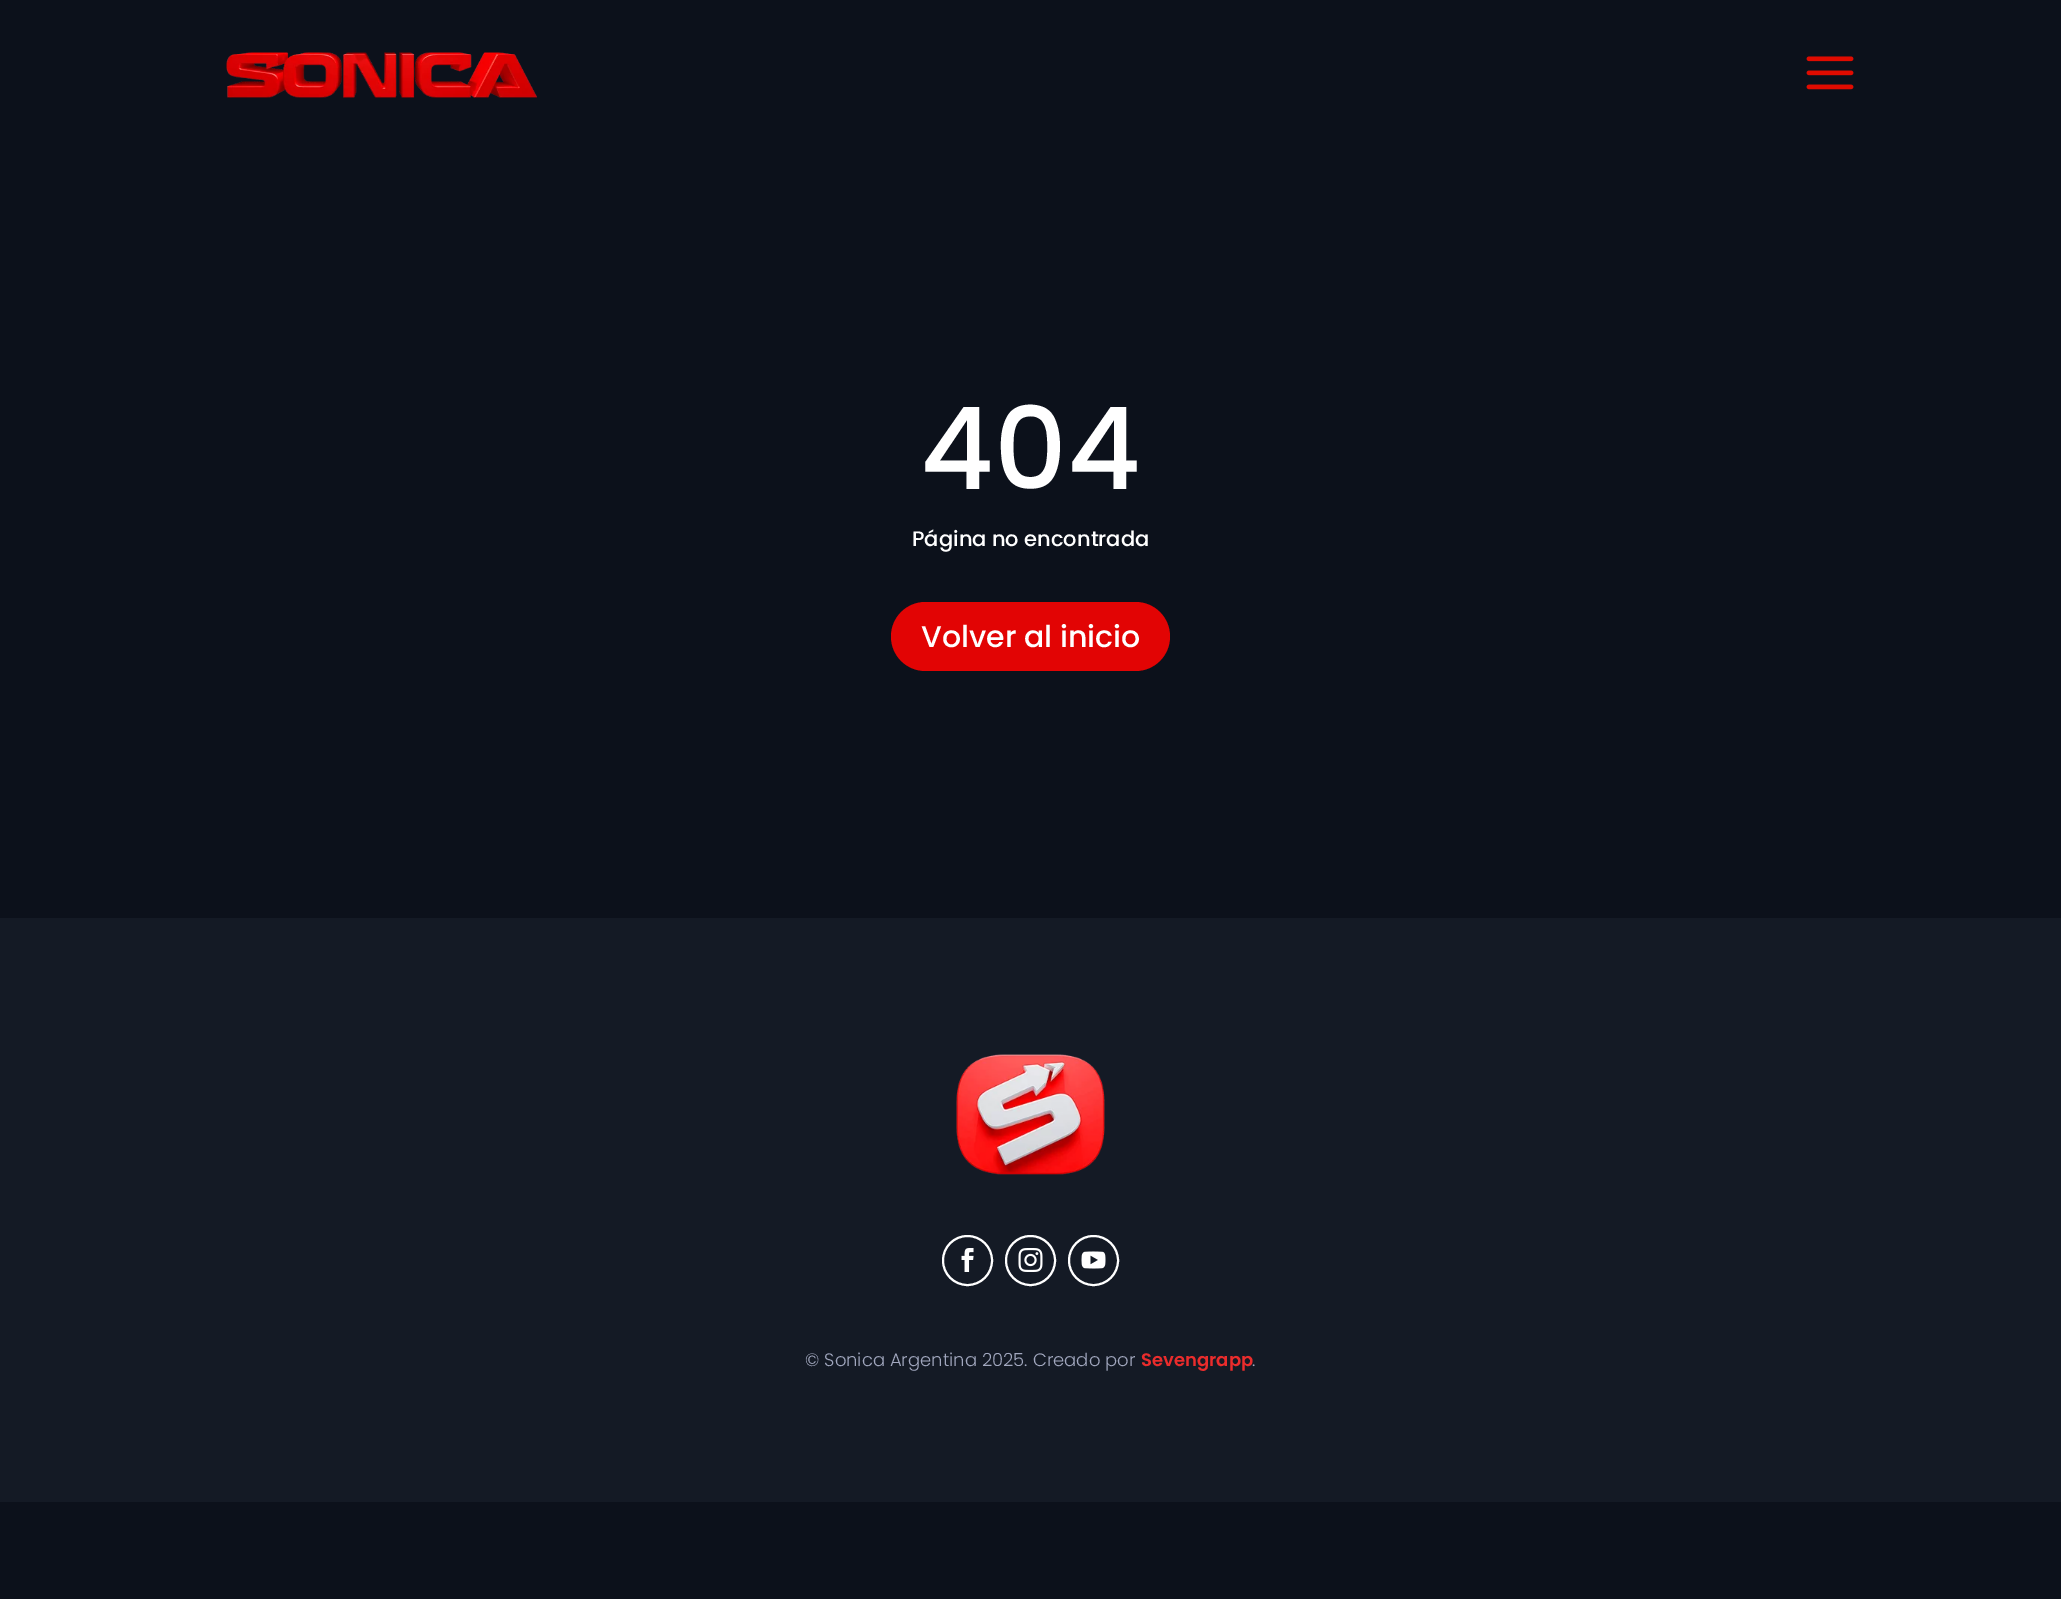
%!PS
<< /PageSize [2061 1599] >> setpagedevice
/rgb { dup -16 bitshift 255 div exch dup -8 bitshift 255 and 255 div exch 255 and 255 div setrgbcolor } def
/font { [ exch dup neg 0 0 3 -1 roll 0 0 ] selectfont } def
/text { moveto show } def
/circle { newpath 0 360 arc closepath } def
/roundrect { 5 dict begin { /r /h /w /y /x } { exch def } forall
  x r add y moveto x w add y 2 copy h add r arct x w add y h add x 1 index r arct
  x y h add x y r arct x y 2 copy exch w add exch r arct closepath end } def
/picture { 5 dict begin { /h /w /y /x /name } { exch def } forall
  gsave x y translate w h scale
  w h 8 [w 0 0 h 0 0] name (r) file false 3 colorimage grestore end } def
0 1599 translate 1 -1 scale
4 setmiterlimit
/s1 { /Poppins-Medium 114 font 16#FFFFFF rgb } def
/s2 { /Poppins-Medium 21 font 16#FFFFFF rgb } def
/s3 { /Poppins-Medium 30 font 16#FFFFFF rgb } def
/s4 { /Poppins-Light 18 font 16#A1A7BE rgb } def
/s5 { /Poppins-SemiBold 18 font 16#EA2C2C rgb } def
16#0C111B rgb
0 0 2061 1599 rectfill
(pic1.raw) 226 52 311 46 picture
(pic2.raw) 1806 56 48 34 picture
s1
(404) 920 489 text
s2
(Página no encontrada) 912 546 text
16#E20404 rgb
891 602 279 69 34.5 roundrect fill
s3
(Volver al inicio) 921 647 text
16#141A25 rgb
0 918 2061 584 rectfill
(pic3.raw) 956 1054 149 121 picture
16#FFFFFF rgb
2 setlinewidth
967.5 1260.5 24.5 circle stroke
(pic4.raw) 961 1248 13 24 picture
1030.5 1260.5 24.5 circle stroke
(pic5.raw) 1018 1248 25 24 picture
1093.5 1260.5 24.5 circle stroke
(pic6.raw) 1081 1251 25 18 picture
s4
(© Sonica Argentina 2025. Creado por) 805 1366 text
s5
(Sevengrapp) 1141 1366 text
s4
(.) 1252 1366 text
showpage
